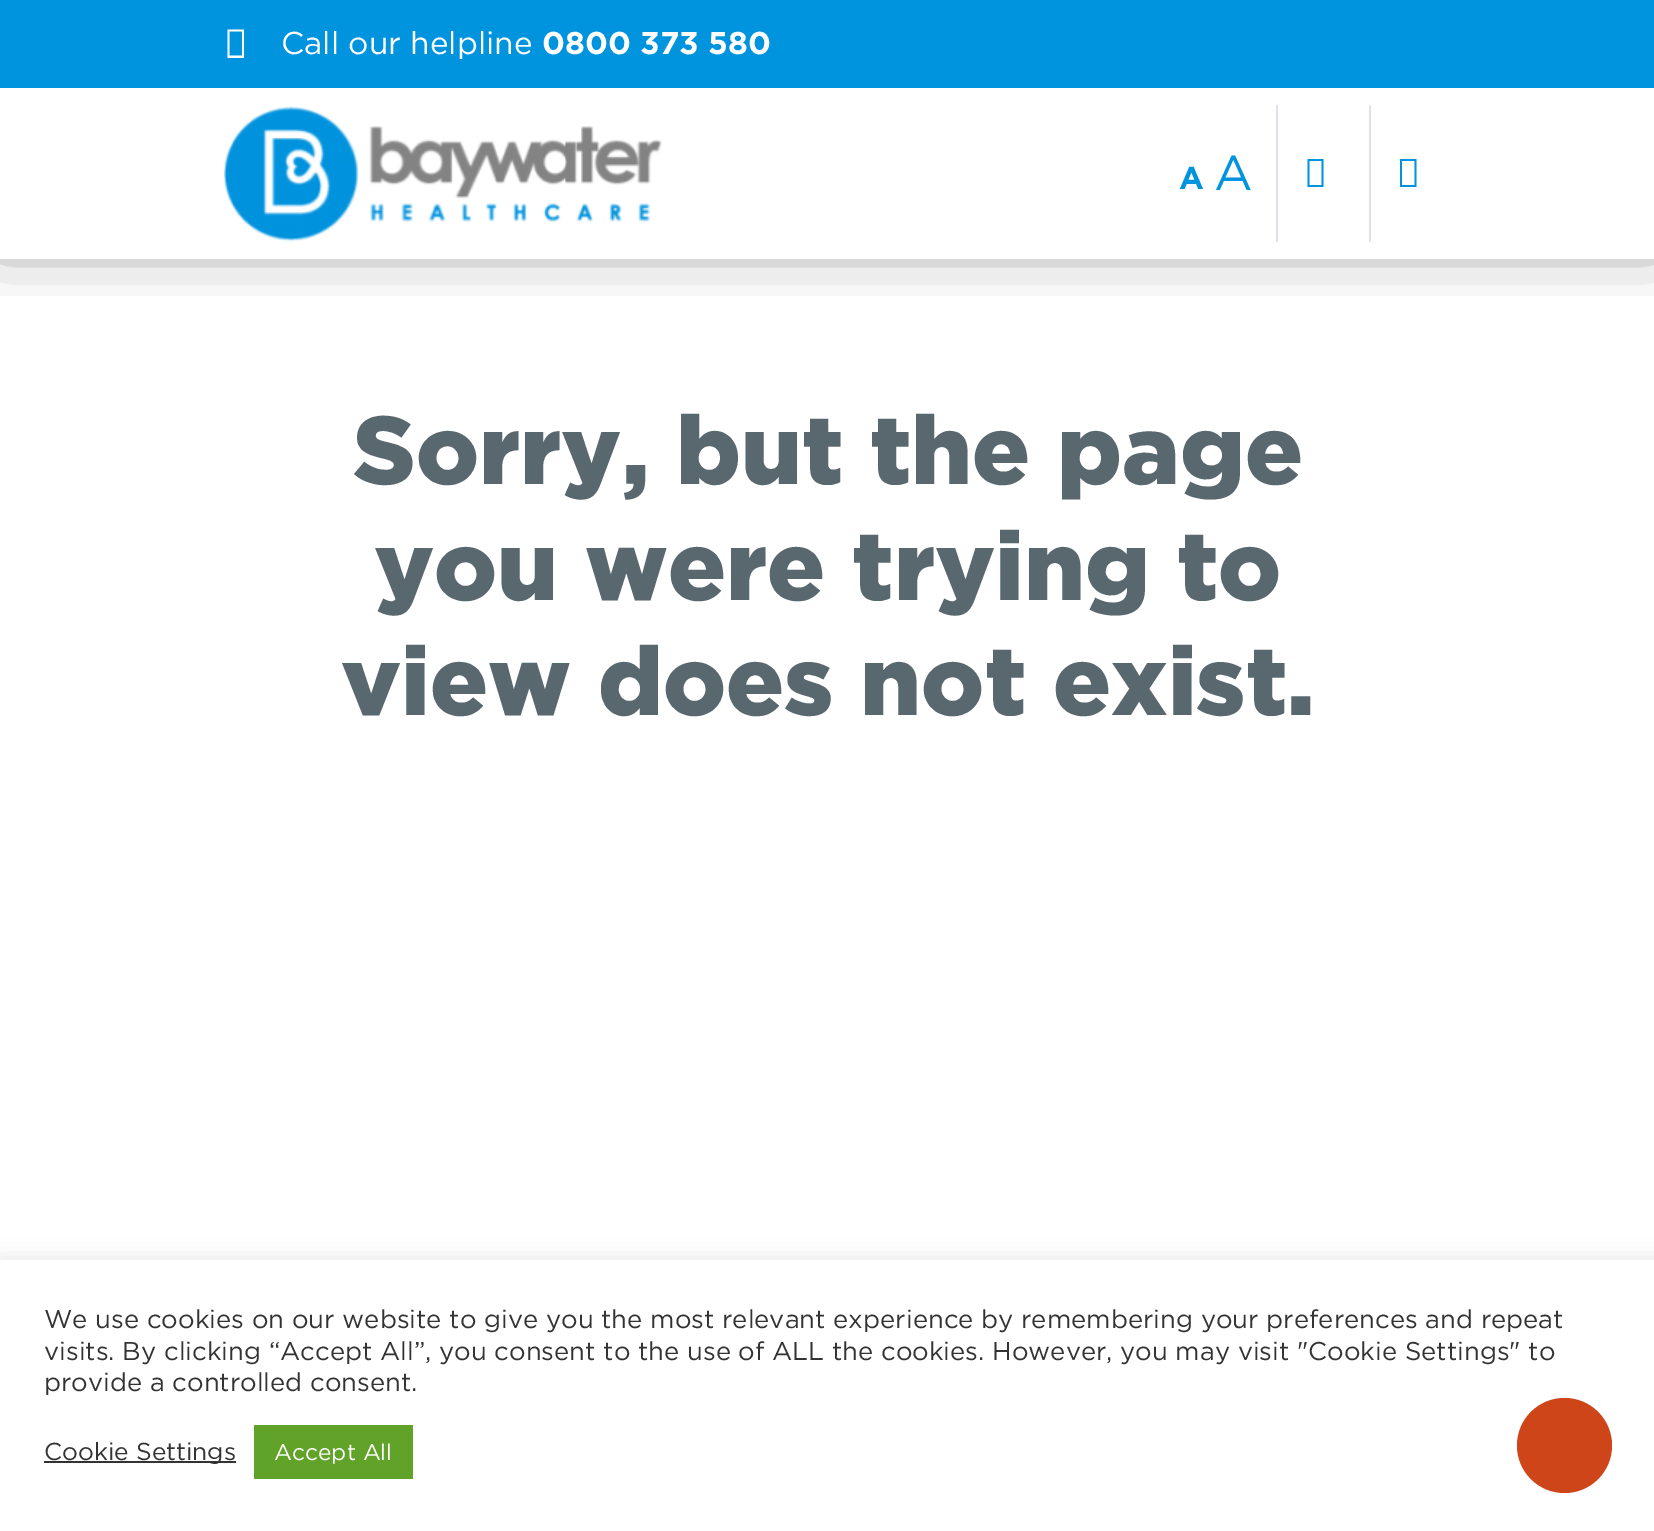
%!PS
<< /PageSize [1654 1531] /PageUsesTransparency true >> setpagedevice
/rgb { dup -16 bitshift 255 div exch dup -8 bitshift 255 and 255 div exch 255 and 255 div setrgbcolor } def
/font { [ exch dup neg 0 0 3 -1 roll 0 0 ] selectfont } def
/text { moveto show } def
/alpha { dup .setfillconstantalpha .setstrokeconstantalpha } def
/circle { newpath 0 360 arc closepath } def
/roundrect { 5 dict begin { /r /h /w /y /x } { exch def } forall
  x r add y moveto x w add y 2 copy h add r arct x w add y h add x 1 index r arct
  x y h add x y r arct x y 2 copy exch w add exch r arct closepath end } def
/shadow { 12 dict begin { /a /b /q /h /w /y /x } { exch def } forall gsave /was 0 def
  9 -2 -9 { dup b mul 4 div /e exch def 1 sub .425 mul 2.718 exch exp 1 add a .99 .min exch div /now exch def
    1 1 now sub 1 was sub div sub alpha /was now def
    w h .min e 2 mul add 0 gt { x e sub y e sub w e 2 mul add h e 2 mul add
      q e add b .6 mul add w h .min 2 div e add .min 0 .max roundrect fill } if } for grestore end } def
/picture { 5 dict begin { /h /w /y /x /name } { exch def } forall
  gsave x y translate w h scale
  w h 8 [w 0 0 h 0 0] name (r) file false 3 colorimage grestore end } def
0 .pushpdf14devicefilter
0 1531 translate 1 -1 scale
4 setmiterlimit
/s1 { /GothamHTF-Regular 31.5 font 16#FFFFFF rgb } def
/s2 { /GothamHTF-Bold 31.5 font 16#FFFFFF rgb } def
/s3 { /GothamHTF-Bold 31.5 font 16#0093DE rgb } def
/s4 { /GothamHTF-Regular 49 font 16#0093DE rgb } def
/s5 { /GothamHTF-Black 96.25 font 16#59676E rgb } def
/s6 { /GothamHTF-Regular 25.67 font 16#333333 rgb } def
/s7 { /GothamHTF-Regular 24.5 font 16#333333 rgb } def
/s8 { /GothamHTF-Regular 22.75 font 16#FFFFFF rgb } def
16#FFFFFF rgb
0 0 1654 1531 rectfill
gsave
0 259 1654 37 rectclip
16#000000 rgb
0 -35 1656 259 0 35 1 shadow
grestore
16#0093DE rgb
0 0 1654 88 rectfill
16#FFFFFF rgb
227.5 58 moveto 227.5 29.5 lineto 244 29.5 lineto 244 58 lineto closepath 229.5 55.5 moveto 242 55.5 lineto 242 31.5 lineto 229.5 31.5 lineto closepath fill
s1
(Call our helpline) 281 54 text
s2
(0800 373 580) 542 54 text
(pic1.raw) 224 106 438 136 picture
s3
(A) 1179 189 text
s4
(A) 1214 190 text
16#DEE2E6 rgb
1369 105 2 137 rectfill
1276 105 2 137 rectfill
16#0093DE rgb
1307.5 187 moveto 1307.5 159 lineto 1323.5 159 lineto 1323.5 187 lineto closepath 1309.5 185 moveto 1321.5 185 lineto 1321.5 161 lineto 1309.5 161 lineto closepath fill
1400 187 moveto 1400 159 lineto 1416.5 159 lineto 1416.5 187 lineto closepath 1402 185 moveto 1414.5 185 lineto 1414.5 161 lineto 1402 161 lineto closepath fill
s5
(Sorry, but the page) 353 484 text
(you were trying to) 374 600 text
(view does not exist.) 341 715 text
16#ACABAB rgb
0 1258 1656 272 0 9 0.3 shadow
16#FFFFFF rgb
0 1260 1654 271 rectfill
s6
(We use cookies on our website to give you the most relevant experience by remembering your preferences and repeat) 44 1328 text
(visits. By clicking “Accept All”, you consent to the use of ALL the cookies. However, you may visit "Cookie Settings" to) 44 1360 text
(provide a controlled consent.) 44 1391 text
44 1461 192 2 rectfill
s7
(Cookie Settings) 44 1460 text
16#61A229 rgb
254 1425 159 54 rectfill
s8
(Accept All) 274 1460 text
16#CD4518 rgb
1564.5 1445.5 47.5 circle fill
.poppdf14devicefilter showpage
